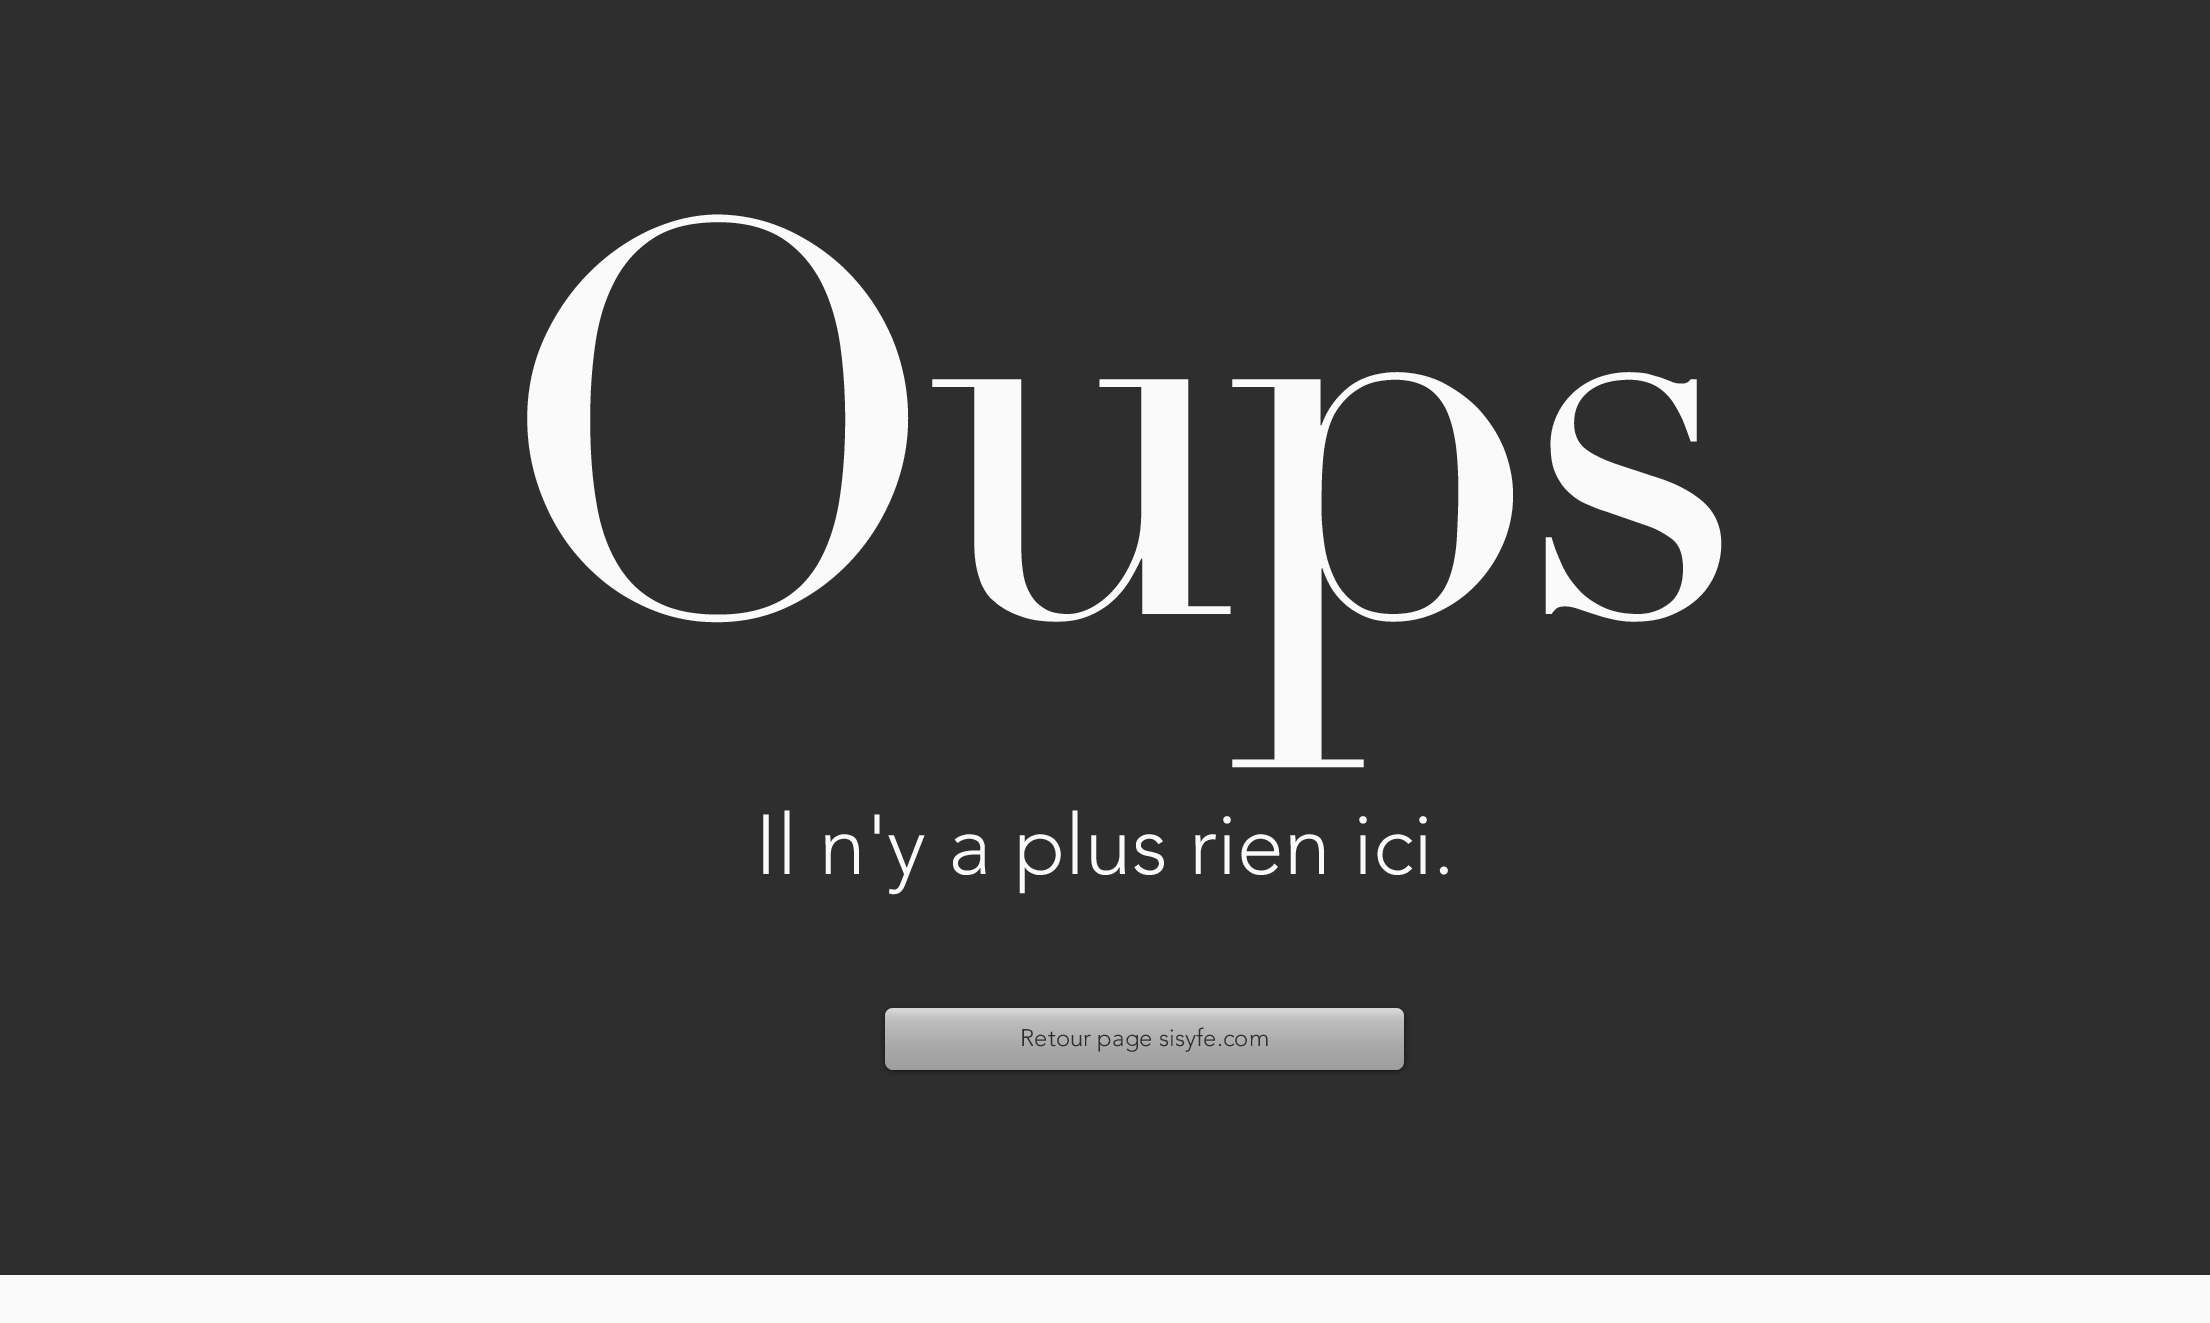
%!PS
<< /PageSize [2210 1323] /PageUsesTransparency true >> setpagedevice
/rgb { dup -16 bitshift 255 div exch dup -8 bitshift 255 and 255 div exch 255 and 255 div setrgbcolor } def
/font { [ exch dup neg 0 0 3 -1 roll 0 0 ] selectfont } def
/text { moveto show } def
/alpha { dup .setfillconstantalpha .setstrokeconstantalpha } def
/roundrect { 5 dict begin { /r /h /w /y /x } { exch def } forall
  x r add y moveto x w add y 2 copy h add r arct x w add y h add x 1 index r arct
  x y h add x y r arct x y 2 copy exch w add exch r arct closepath end } def
/shadow { 12 dict begin { /a /b /q /h /w /y /x } { exch def } forall gsave /was 0 def
  9 -2 -9 { dup b mul 4 div /e exch def 1 sub .425 mul 2.718 exch exp 1 add a .99 .min exch div /now exch def
    1 1 now sub 1 was sub div sub alpha /was now def
    w h .min e 2 mul add 0 gt { x e sub y e sub w e 2 mul add h e 2 mul add
      q e add b .6 mul add w h .min 2 div e add .min 0 .max roundrect fill } if } for grestore end } def
/picture { 5 dict begin { /h /w /y /x /name } { exch def } forall
  gsave x y translate w h scale
  w h 8 [w 0 0 h 0 0] name (r) file false 3 colorimage grestore end } def
0 .pushpdf14devicefilter
0 1323 translate 1 -1 scale
4 setmiterlimit
/s1 { /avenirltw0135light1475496-Light 84 font 16#FAFAFA rgb } def
/s2 { /avenirltw0135light1475496-Light 24 font 16#2F2E2E rgb } def
16#FAFAFA rgb
0 0 2210 1323 rectfill
16#2F2E2E rgb
0 0 2210 1275 rectfill
/Didot-Regular 549 font
16#FAFAFA rgb
490 614 moveto -27.5 0 (Oups) ashow
s1
(Il n'y a plus rien ici.) 755 874 text
gsave
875 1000 moveto 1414 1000 lineto 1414 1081 lineto 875 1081 lineto closepath 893 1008 moveto 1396 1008 lineto 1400.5 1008 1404 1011.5 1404 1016 curveto 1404 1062 lineto 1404 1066.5 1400.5 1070 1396 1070 curveto 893 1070 lineto 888.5 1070 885 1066.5 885 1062 curveto 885 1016 lineto 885 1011.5 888.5 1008 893 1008 curveto closepath eoclip newpath
16#000000 rgb
885 1010 519 61 8 3 0.6 shadow
grestore
0.83 alpha
16#B1B1B1 rgb
885 1008 519 62 8 roundrect fill
1 alpha
(pic1.raw) 885 1008 519 61 picture
s2
(Retour page sisyfe.com) 1020 1046 text
.poppdf14devicefilter showpage
